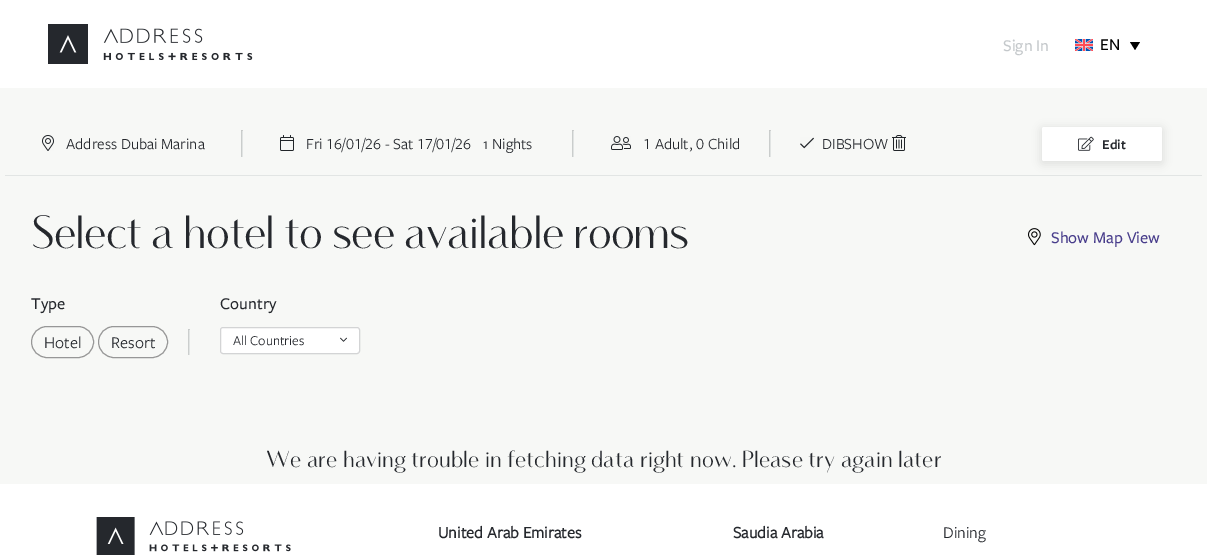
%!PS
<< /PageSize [1207 560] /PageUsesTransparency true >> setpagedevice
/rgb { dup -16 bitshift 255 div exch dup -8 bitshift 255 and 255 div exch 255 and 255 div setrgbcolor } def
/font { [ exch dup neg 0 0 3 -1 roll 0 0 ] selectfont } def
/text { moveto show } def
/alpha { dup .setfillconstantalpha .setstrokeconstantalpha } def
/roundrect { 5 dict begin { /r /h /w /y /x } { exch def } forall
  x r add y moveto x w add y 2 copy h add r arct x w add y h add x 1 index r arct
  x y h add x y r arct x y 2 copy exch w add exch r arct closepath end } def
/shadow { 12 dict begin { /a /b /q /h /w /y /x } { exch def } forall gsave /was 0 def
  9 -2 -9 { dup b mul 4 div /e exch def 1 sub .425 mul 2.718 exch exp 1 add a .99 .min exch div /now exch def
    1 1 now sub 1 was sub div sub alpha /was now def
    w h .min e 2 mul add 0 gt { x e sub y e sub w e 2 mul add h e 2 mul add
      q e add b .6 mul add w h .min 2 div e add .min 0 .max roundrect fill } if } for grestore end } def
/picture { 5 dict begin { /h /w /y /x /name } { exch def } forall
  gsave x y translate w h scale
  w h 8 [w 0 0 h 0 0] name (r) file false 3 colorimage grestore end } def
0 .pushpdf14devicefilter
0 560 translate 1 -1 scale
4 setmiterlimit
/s1 { /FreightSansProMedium-Medium 17 font 16#C4C8CB rgb } def
/s2 { /FreightSansProMedium-Medium 17 font 16#000000 rgb } def
/s3 { /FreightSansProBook-Regular 16 font 16#25282D rgb } def
/s4 { /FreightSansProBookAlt-Regular 16 font 16#25282D rgb } def
/s5 { /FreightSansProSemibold-SemiBold 14 font 16#25282D rgb } def
/s6 { /FreightSansProMedium-Medium 17 font 16#483D8B rgb } def
/s7 { /FreightSansProMedium-Medium 17 font 16#25282D rgb } def
/s8 { /FreightSansProBook-Regular 17 font 16#25282D rgb } def
/s9 { /FreightSansProBook-Regular 14 font 16#25282D rgb } def
/s10 { /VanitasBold-Bold 24 font 16#25282D rgb } def
/s11 { /FreightSansProBook-Bold 17 font 16#25282D rgb } def
16#FFFFFF rgb
0 0 1207 560 rectfill
(pic1.raw) 48 24 205 40 picture
s1
(Sign In) 1003 51 text
(pic2.raw) 1075 39 18 12 picture
s2
(EN) 1100 50 text
1130 42 moveto 1140 42 lineto 1135 50 lineto closepath fill
16#F7F8F6 rgb
0 88 1207 396 rectfill
16#E2E5E4 rgb
5 175 1197 1 rectfill
(pic3.raw) 42 135 12 16 picture
s3
(Address Dubai Marina) 66 149 text
16#E1E4E3 rgb
241 130 2 27 rectfill
16#CBCDCC rgb
241 130 moveto 243 130 lineto 243 131 lineto 242 131 lineto closepath fill
0.1 alpha
16#000000 rgb
241 157 moveto 241 130 lineto 242 131 lineto 242 157 lineto closepath fill
1 alpha
(pic4.raw) 280 135 14 16 picture
s4
(Fri 16/01/26 - Sat 17/01/26) 306 149 text
s3
(1 Nights) 483 149 text
16#E1E4E3 rgb
572 130 2 27 rectfill
16#CBCDCC rgb
572 130 moveto 574 130 lineto 574 131 lineto 573 131 lineto closepath fill
0.1 alpha
16#000000 rgb
572 157 moveto 572 130 lineto 573 131 lineto 573 157 lineto closepath fill
1 alpha
(pic5.raw) 611 136 20 14 picture
s4
(1 Adult, 0 Child) 643 149 text
16#E1E4E3 rgb
769 130 2 27 rectfill
16#CBCDCC rgb
769 130 moveto 771 130 lineto 771 131 lineto 770 131 lineto closepath fill
0.1 alpha
16#000000 rgb
769 157 moveto 769 130 lineto 770 131 lineto 770 157 lineto closepath fill
1 alpha
(pic6.raw) 800 137 14 12 picture
s3
(DIBSHOW) 822 149 text
(pic7.raw) 892 135 14 16 picture
1040 127 124 38 4 4 0.1 shadow
16#FFFFFF rgb
1042 127 120 34 2 roundrect fill
(pic8.raw) 1078 136 16 15 picture
s5
(Edit) 1102 149 text
/VanitasBold-Bold 48 font
31 248 moveto -1 0 (Select a hotel to see available rooms) ashow
(pic9.raw) 1028 228 13 18 picture
s6
(Show Map View) 1051 243 text
s7
(Type) 31 309 text
16#979797 rgb
31.5 326.5 62 31 15.5 roundrect stroke
s8
(Hotel) 44 348 text
16#979797 rgb
98.5 326.5 69 31 15.5 roundrect stroke
s8
(Resort) 111 348 text
16#E2E5E4 rgb
188 329 2 26 rectfill
16#CBCECD rgb
188 329 moveto 190 329 lineto 190 330 lineto 189 330 lineto closepath fill
0.1 alpha
16#000000 rgb
188 355 moveto 188 329 lineto 189 330 lineto 189 355 lineto closepath fill
1 alpha
s7
(Country) 220 309 text
16#FFFFFF rgb
220 327 140 27 3 roundrect fill
0.2 alpha
16#25282D rgb
220.5 327.5 139 26 2.5 roundrect stroke
1 alpha
s9
(All Countries) 233 345 text
(pic10.raw) 340 337 7 5 picture
s10
(We are having trouble in fetching data right now. Please try again later) 266 467 text
(pic11.raw) 96 517 195 38 picture
s11
(United Arab Emirates) 438 538 text
(Saudia Arabia) 733 538 text
s8
(Dining) 943 538 text
.poppdf14devicefilter showpage
